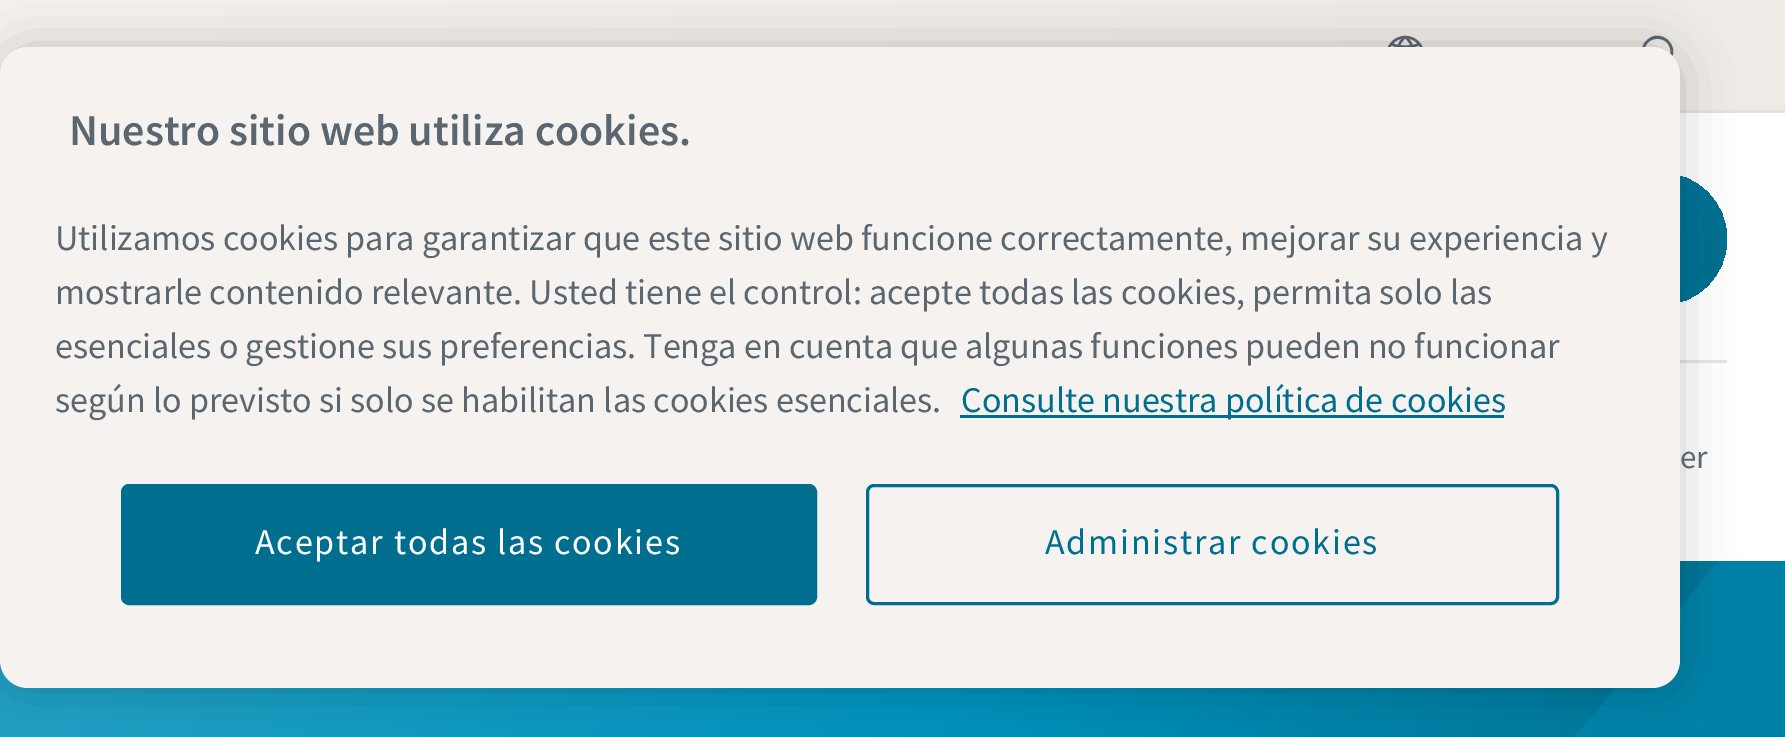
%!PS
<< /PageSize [1785 737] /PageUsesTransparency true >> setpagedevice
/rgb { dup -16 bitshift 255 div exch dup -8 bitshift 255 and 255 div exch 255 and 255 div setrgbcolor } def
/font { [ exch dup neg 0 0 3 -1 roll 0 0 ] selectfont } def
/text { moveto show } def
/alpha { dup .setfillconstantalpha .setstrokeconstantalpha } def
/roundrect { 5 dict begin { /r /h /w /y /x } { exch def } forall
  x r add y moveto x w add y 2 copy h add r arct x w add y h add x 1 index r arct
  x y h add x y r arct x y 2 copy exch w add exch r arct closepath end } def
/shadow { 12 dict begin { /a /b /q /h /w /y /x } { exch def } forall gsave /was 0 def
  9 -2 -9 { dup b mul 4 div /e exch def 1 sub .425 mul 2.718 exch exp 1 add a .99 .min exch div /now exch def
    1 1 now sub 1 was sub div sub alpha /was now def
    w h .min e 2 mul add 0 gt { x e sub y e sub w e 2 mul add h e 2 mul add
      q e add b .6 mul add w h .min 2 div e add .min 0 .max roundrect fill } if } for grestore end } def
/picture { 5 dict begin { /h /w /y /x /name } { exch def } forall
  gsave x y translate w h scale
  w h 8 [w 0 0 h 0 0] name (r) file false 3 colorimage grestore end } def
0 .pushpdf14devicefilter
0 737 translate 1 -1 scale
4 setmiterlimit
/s1 { /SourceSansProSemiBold-SemiBold 44 font 16#5B6770 rgb } def
/s2 { /SourceSansPro-Regular 36.1 font 16#5B6770 rgb } def
/s3 { /SourceSansPro-Regular 36.1 font 16#006F8F rgb } def
/s4 { /SourceSansPro-Regular 33 font 16#5B6770 rgb } def
16#FFFFFF rgb
0 0 1785 737 rectfill
gsave 0 0 moveto 1785 0 lineto 1785 110 lineto 0 110 lineto closepath clip newpath
<< /ShadingType 2 /ColorSpace /DeviceRGB /Coords [0 55 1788 55] /Extend [true true] /Function << /FunctionType 2 /Domain [0 1] /C0 [0.961 0.949 0.937] /C1 [0.937 0.922 0.902] /N 1 >> >> shfill grestore
16#E7E0DA rgb
1680 110 105 3 rectfill
(pic1.raw) 1387 35 36 12 picture
16#5B6770 rgb
1680 72 moveto 1669.5 61.5 lineto 1682 46.5 1660.5 26.5 1646.5 40.5 curveto 1632.5 54.5 1652.5 76 1667.5 63.5 curveto 1678 74 lineto closepath 1644.5 51.5 moveto 1644.5 34.5 1670.5 34.5 1670.5 52 curveto 1670 68.5 1644.5 68 1644.5 51.5 curveto closepath fill
gsave 1397 173 330 132 66 roundrect clip newpath
<< /ShadingType 2 /ColorSpace /DeviceRGB /Coords [1393 227 1731 251] /Extend [true true] /Function << /FunctionType 3 /Domain [0 1] /Functions [<< /FunctionType 2 /Domain [0 1] /C0 [0.122 0.624 0.769] /C1 [0.122 0.624 0.769] /N 1 >> << /FunctionType 2 /Domain [0 1] /C0 [0.122 0.624 0.769] /C1 [0 0.573 0.737] /N 1 >> << /FunctionType 2 /Domain [0 1] /C0 [0 0.573 0.737] /C1 [0 0.435 0.561] /N 1 >> << /FunctionType 2 /Domain [0 1] /C0 [0 0.435 0.561] /C1 [0 0.435 0.561] /N 1 >>] /Bounds [0.04 0.48 0.96] /Encode [0 1 0 1 0 1 0 1] >> >> shfill grestore
16#E6E6E6 rgb
1680 360 47 3 rectfill
gsave 0 561 moveto 1785 561 lineto 1785 737 lineto 0 737 lineto closepath clip newpath
<< /ShadingType 2 /ColorSpace /DeviceRGB /Coords [-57 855 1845 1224] /Extend [true true] /Function << /FunctionType 3 /Domain [0 1] /Functions [<< /FunctionType 2 /Domain [0 1] /C0 [0.122 0.624 0.769] /C1 [0.122 0.624 0.769] /N 1 >> << /FunctionType 2 /Domain [0 1] /C0 [0.122 0.624 0.769] /C1 [0 0.573 0.737] /N 1 >> << /FunctionType 2 /Domain [0 1] /C0 [0 0.573 0.737] /C1 [0 0.435 0.561] /N 1 >> << /FunctionType 2 /Domain [0 1] /C0 [0 0.435 0.561] /C1 [0 0.435 0.561] /N 1 >>] /Bounds [0.04 0.49 0.97] /Encode [0 1 0 1 0 1 0 1] >> >> shfill grestore
gsave
0 561 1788 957 rectclip
0.4 alpha
16#0092BC rgb
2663 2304 moveto 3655 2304 lineto 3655 -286 lineto 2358 -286 lineto 1596 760 704 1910 35 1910 curveto -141 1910 -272 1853 -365 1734 curveto -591 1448 -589 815 -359 -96 curveto -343 -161 -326 -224 -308 -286 curveto -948 -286 lineto -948 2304 lineto 860 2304 lineto 1517 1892 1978 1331 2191 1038 curveto 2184 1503 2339 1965 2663 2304 curveto closepath eofill
grestore
16#000000 rgb
0 47 1680 641 28 25 0.2 shadow
16#F5F2EF rgb
0 47 1680 641 28 roundrect fill
s1
(Nuestro sitio web utiliza cookies.) 69 145 text
s2
(Utilizamos cookies para garantizar que este sitio web funcione correctamente, mejorar su experiencia y) 55 250 text
(mostrarle contenido relevante. Usted tiene el control: acepte todas las cookies, permita solo las) 55 304 text
(esenciales o gestione sus preferencias. Tenga en cuenta que algunas funciones pueden no funcionar) 55 358 text
(según lo previsto si solo se habilitan las cookies esenciales.) 55 412 text
16#006F8F rgb
960 415 544 3 rectfill
(Consulte nuestra política de cookies) 961 412 text
122.5 485.5 693 118 6.5 roundrect gsave fill grestore
3 setlinewidth
stroke
16#FFFFFF rgb
255 554 moveto 1.8 0 (Aceptar todas las cookies) ashow
16#006F8F rgb
867.5 485.5 690 118 6.5 roundrect stroke
1045 554 moveto 1.8 0 (Administrar cookies) ashow
s4
(er) 1680 468 text
.poppdf14devicefilter showpage
